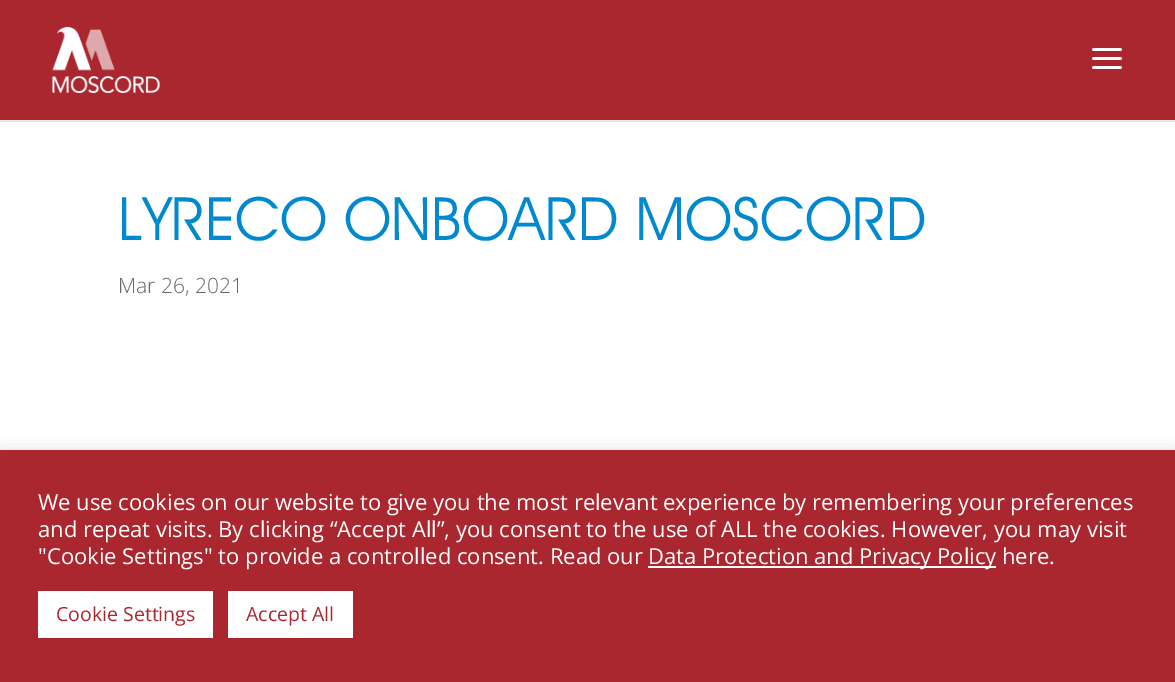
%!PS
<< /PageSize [1175 682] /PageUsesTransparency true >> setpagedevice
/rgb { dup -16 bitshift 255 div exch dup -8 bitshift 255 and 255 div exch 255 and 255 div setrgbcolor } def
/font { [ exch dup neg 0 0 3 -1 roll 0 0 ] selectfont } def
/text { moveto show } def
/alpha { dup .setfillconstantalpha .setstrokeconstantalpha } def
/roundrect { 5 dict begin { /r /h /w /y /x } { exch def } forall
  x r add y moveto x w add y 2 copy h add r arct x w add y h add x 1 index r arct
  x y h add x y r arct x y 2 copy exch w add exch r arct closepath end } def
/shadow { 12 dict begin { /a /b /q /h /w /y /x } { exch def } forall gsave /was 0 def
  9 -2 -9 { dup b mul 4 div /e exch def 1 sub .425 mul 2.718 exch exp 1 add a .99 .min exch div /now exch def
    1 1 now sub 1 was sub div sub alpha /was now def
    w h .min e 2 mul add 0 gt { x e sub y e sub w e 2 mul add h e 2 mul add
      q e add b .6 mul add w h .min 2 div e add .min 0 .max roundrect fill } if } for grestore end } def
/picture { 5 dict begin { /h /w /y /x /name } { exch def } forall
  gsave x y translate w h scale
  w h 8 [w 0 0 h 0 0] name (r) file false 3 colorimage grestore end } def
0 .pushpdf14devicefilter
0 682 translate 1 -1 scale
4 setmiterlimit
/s1 { /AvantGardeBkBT-Regular 60 font 16#0089CE rgb } def
/s2 { /OpenSans-Light 21 font 16#666666 rgb } def
/s3 { /OpenSans-Regular 22 font 16#FFFFFF rgb } def
/s4 { /OpenSans-Regular 19.5 font 16#AA272F rgb } def
16#FFFFFF rgb
0 0 1175 682 rectfill
16#E6E6E6 rgb
0 120 1175 2 rectfill
16#AA272F rgb
0 0 1175 120 rectfill
(pic1.raw) 52 27 108 66 picture
(pic2.raw) 1092 48 30 21 picture
s1
(LYRECO ONBOARD MOSCORD) 118 240 text
s2
(Mar 26, 2021) 118 293 text
16#ACABAB rgb
0 449 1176 232 0 7.5 0.3 shadow
16#AA272F rgb
0 450 1175 232 rectfill
s3
(We use cookies on our website to give you the most relevant experience by remembering your preferences) 38 510 text
(and repeat visits. By clicking “Accept All”, you consent to the use of ALL the cookies. However, you may visit) 38 537 text
("Cookie Settings" to provide a controlled consent. Read our) 38 564 text
648 566 348 2 rectfill
(Data Protection and Privacy Policy here.) 648 564 text
38 591 175 47 rectfill
s4
(Cookie Settings) 56 621 text
16#FFFFFF rgb
228 591 125 47 rectfill
s4
(Accept All) 246 621 text
.poppdf14devicefilter showpage
